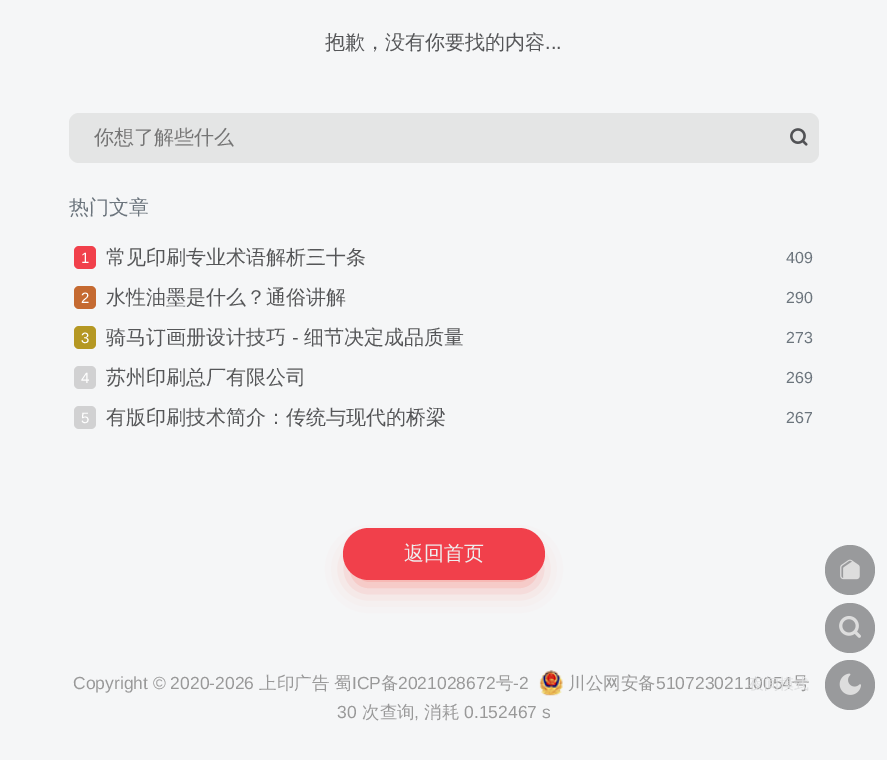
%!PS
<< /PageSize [887 760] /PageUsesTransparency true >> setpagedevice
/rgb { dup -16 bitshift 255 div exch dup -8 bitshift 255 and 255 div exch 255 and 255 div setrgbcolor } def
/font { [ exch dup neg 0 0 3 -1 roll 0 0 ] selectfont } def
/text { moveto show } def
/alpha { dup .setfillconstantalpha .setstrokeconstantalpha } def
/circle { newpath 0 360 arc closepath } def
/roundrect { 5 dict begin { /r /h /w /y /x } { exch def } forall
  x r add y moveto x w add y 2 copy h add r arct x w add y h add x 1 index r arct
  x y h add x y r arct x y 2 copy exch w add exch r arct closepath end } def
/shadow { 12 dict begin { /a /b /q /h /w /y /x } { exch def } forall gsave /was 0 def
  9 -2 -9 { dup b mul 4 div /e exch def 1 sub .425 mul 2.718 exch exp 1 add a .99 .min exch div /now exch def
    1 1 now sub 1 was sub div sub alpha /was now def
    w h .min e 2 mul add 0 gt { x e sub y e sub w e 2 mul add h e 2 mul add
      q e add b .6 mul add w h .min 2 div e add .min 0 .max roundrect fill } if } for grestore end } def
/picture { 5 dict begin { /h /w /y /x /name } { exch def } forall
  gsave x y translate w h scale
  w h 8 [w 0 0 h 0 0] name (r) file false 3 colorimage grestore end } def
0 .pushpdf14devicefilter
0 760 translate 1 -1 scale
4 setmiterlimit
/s1 { /WenQuanYiZenHei-Medium 20 font 16#555658 rgb } def
/s2 { /LiberationSans-Regular 20 font 16#555658 rgb } def
/s3 { /WenQuanYiZenHei-Medium 20 font 16#757575 rgb } def
/s4 { /WenQuanYiZenHei-Medium 20 font 16#6C757D rgb } def
/s5 { /LiberationSans-Regular 15 font 16#FFFFFF rgb } def
/s6 { /LiberationSans-Regular 16 font 16#6C757D rgb } def
/s7 { /WenQuanYiZenHei-Medium 20 font 16#EEEEEE rgb } def
/s8 { /LiberationSans-Regular 17.5 font 16#999999 rgb } def
/s9 { /WenQuanYiZenHei-Medium 17.5 font 16#999999 rgb } def
/s10 { /WenQuanYiZenHei-Medium 15 font 16#DCDDDE rgb } def
16#F5F6F7 rgb
0 0 887 760 rectfill
s1
(抱歉，没有你要找的内容) 325 49 text
s2
(...) 545 49 text
16#E4E5E5 rgb
69 113 750 50 10 roundrect fill
s3
(你想了解些什么) 94 144 text
(pic1.raw) 790 128 18 18 picture
s4
(热门文章) 69 214 text
16#F1404B rgb
74 246 22 23 5 roundrect fill
s5
(1) 81 263 text
s1
(常见印刷专业术语解析三十条) 106 264 text
s6
(409) 786 263 text
16#C56A31 rgb
74 286 22 23 5 roundrect fill
s5
(2) 81 303 text
s1
(水性油墨是什么？通俗讲解) 106 304 text
s6
(290) 786 303 text
16#B59823 rgb
74 326 22 23 5 roundrect fill
s5
(3) 81 343 text
s1
(骑马订画册设计技巧) 106 344 text
s2
(-) 292 344 text
s1
(细节决定成品质量) 304 344 text
s6
(273) 786 343 text
16#D1D1D2 rgb
74 366 22 23 5 roundrect fill
s5
(4) 81 383 text
s1
(苏州印刷总厂有限公司) 106 384 text
s6
(269) 786 383 text
16#D1D1D2 rgb
74 406 22 23 5 roundrect fill
s5
(5) 81 423 text
s1
(有版印刷技术简介：传统与现代的桥梁) 106 424 text
s6
(267) 786 423 text
16#F9645A rgb
353 553 182 32 16 12.5 0.6 shadow
16#F1404B rgb
343 528 202 52 26 roundrect fill
s7
(返回首页) 404 560 text
s8
(Copyright © 2020-2026) 73 689 text
s9
(上印广告) 259 689 text
(蜀) 334 689 text
s8
(ICP) 352 689 text
s9
(备) 381 689 text
s8
(2021028672) 398 689 text
s9
(号) 496 689 text
s8
(-2) 513 689 text
(pic2.raw) 539 670 24 26 picture
s9
(川公网安备) 568 689 text
s8
(51072302110054) 656 689 text
s9
(号) 792 689 text
s8
(30) 337 718 text
s9
(次查询) 362 718 text
s8
(,) 414 718 text
s9
(消耗) 424 718 text
s8
(0.152467 s) 464 718 text
16#999A9C rgb
850 570 25 circle fill
(pic3.raw) 840 559 20 21 picture
850 628 25 circle fill
(pic4.raw) 839 616 22 22 picture
850 685 25 circle fill
s10
(夜间模式) 749 689 text
(pic5.raw) 839 673 22 22 picture
.poppdf14devicefilter showpage
